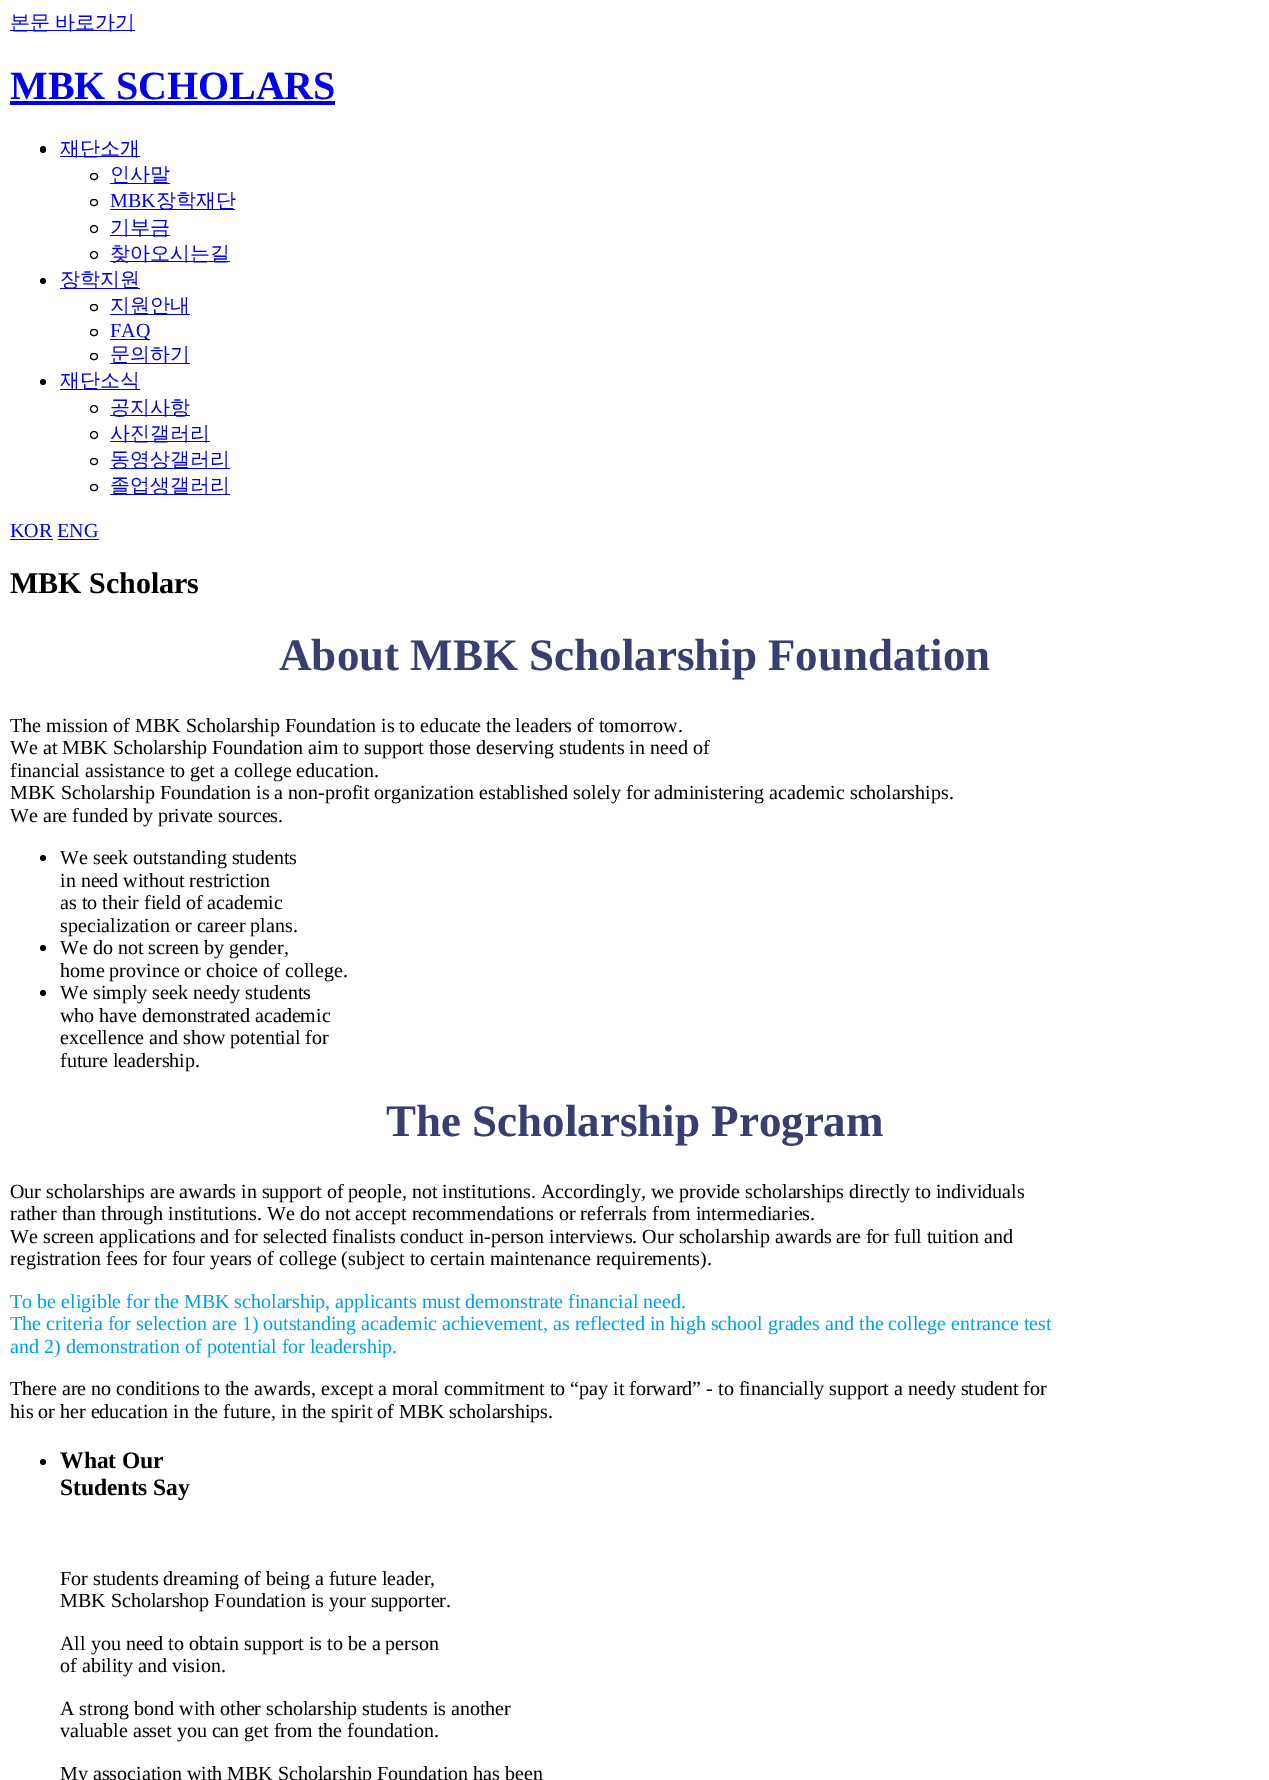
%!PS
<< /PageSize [1269 1780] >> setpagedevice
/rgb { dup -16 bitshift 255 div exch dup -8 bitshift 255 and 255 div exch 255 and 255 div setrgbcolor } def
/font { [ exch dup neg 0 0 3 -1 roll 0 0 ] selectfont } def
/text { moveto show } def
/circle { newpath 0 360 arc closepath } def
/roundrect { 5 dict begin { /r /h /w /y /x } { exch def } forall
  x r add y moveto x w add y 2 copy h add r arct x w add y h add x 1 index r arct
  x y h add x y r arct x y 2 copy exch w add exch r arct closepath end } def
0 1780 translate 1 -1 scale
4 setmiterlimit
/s1 { /LiberationSerif-Bold 40 font 16#0000EE rgb } def
/s2 { /WenQuanYiZenHei-Medium 20 font 16#0000EE rgb } def
/s3 { /LiberationSerif-Regular 20 font 16#0000EE rgb } def
/s4 { /LiberationSerif-Bold 30 font 16#000000 rgb } def
/s5 { /LiberationSerif-Bold 45 font 16#383E70 rgb } def
/s6 { /LiberationSerif-Regular 20 font 16#000000 rgb } def
/s7 { /LiberationSerif-Regular 20 font 16#00A0E9 rgb } def
/s8 { /LiberationSerif-Bold 23.5 font 16#000000 rgb } def
16#FFFFFF rgb
0 0 1269 1780 rectfill
16#0000EE rgb
10 30 125 1 rectfill
/WenQuanYiZenHei-Medium 20 font
10 29 moveto -1 0 32 (본문 바로가기) widthshow
s1
(MBK SCHOLARS) 10 99 text
10 101 325 4 rectfill
16#000000 rgb
40 146 6 7 3 roundrect fill
16#0000EE rgb
60 156 80 1 rectfill
s2
(재단소개) 60 155 text
16#000000 rgb
90.5 173.5 7 6 3 roundrect stroke
16#0000EE rgb
110 183 60 1 rectfill
(인사말) 110 181 text
16#000000 rgb
90.5 199.5 7 6 3 roundrect stroke
s3
(MBK) 110 207 text
110 209 125 1 rectfill
s2
(장학재단) 156 207 text
16#000000 rgb
94 229 3.5 circle stroke
16#0000EE rgb
110 235 60 1 rectfill
(기부금) 110 234 text
16#000000 rgb
94 255 3.5 circle stroke
16#0000EE rgb
110 261 120 1 rectfill
(찾아오시는길) 110 260 text
16#000000 rgb
43 281 3 circle fill
16#0000EE rgb
60 288 80 1 rectfill
(장학지원) 60 286 text
16#000000 rgb
90.5 304.5 7 6 3 roundrect stroke
16#0000EE rgb
110 314 80 1 rectfill
(지원안내) 110 312 text
16#000000 rgb
90.5 329.5 7 6 3 roundrect stroke
16#0000EE rgb
110 339 40 1 rectfill
s3
(FAQ) 110 337 text
16#000000 rgb
90.5 353.5 7 6 3 roundrect stroke
16#0000EE rgb
110 363 80 1 rectfill
s2
(문의하기) 110 361 text
16#000000 rgb
43 382 3 circle fill
16#0000EE rgb
60 389 80 1 rectfill
(재단소식) 60 387 text
16#000000 rgb
94 409 3.5 circle stroke
16#0000EE rgb
110 415 80 1 rectfill
(공지사항) 110 414 text
16#000000 rgb
94 435 3.5 circle stroke
16#0000EE rgb
110 441 100 1 rectfill
(사진갤러리) 110 440 text
16#000000 rgb
90.5 458.5 7 6 3 roundrect stroke
16#0000EE rgb
110 468 120 1 rectfill
(동영상갤러리) 110 466 text
16#000000 rgb
90.5 484.5 7 6 3 roundrect stroke
16#0000EE rgb
110 494 120 1 rectfill
(졸업생갤러리) 110 492 text
s3
(KOR ENG) 10 537 text
10 539 43 1 rectfill
58 539 41 1 rectfill
s4
(MBK Scholars) 10 593 text
s5
(About MBK Scholarship Foundation) 279 670 text
s6
(The mission of MBK Scholarship Foundation is to educate the leaders of tomorrow.) 10 732 text
(We at MBK Scholarship Foundation aim to support those deserving students in need of) 10 754 text
(financial assistance to get a college education.) 10 777 text
(MBK Scholarship Foundation is a non-profit organization established solely for administering academic scholarships.) 10 799 text
(We are funded by private sources.) 10 822 text
43 858 3 circle fill
(We seek outstanding students) 60 864 text
(in need without restriction) 60 887 text
(as to their field of academic) 60 909 text
(specialization or career plans.) 60 932 text
43 948 3 circle fill
(We do not screen by gender,) 60 954 text
(home province or choice of college.) 60 977 text
43 993 3 circle fill
(We simply seek needy students) 60 999 text
(who have demonstrated academic) 60 1022 text
(excellence and show potential for) 60 1044 text
(future leadership.) 60 1067 text
s5
(The Scholarship Program) 386 1136 text
s6
(Our scholarships are awards in support of people, not institutions. Accordingly, we provide scholarships directly to individuals) 10 1198 text
(rather than through institutions. We do not accept recommendations or referrals from intermediaries.) 10 1220 text
(We screen applications and for selected finalists conduct in-person interviews. Our scholarship awards are for full tuition and) 10 1243 text
(registration fees for four years of college \(subject to certain maintenance requirements\).) 10 1265 text
s7
(To be eligible for the MBK scholarship, applicants must demonstrate financial need.) 10 1308 text
(The criteria for selection are 1\) outstanding academic achievement, as reflected in high school grades and the college entrance test) 10 1330 text
(and 2\) demonstration of potential for leadership.) 10 1353 text
s6
(There are no conditions to the awards, except a moral commitment to “pay it forward” - to financially support a needy student for) 10 1395 text
(his or her education in the future, in the spirit of MBK scholarships.) 10 1418 text
43 1462 3 circle fill
s8
(What Our) 60 1468 text
(Students Say) 60 1495 text
s6
(For students dreaming of being a future leader,) 60 1585 text
(MBK Scholarshop Foundation is your supporter.) 60 1607 text
(All you need to obtain support is to be a person) 60 1650 text
(of ability and vision.) 60 1672 text
(A strong bond with other scholarship students is another) 60 1715 text
(valuable asset you can get from the foundation.) 60 1737 text
(My association with MBK Scholarship Foundation has been) 60 1780 text
showpage
